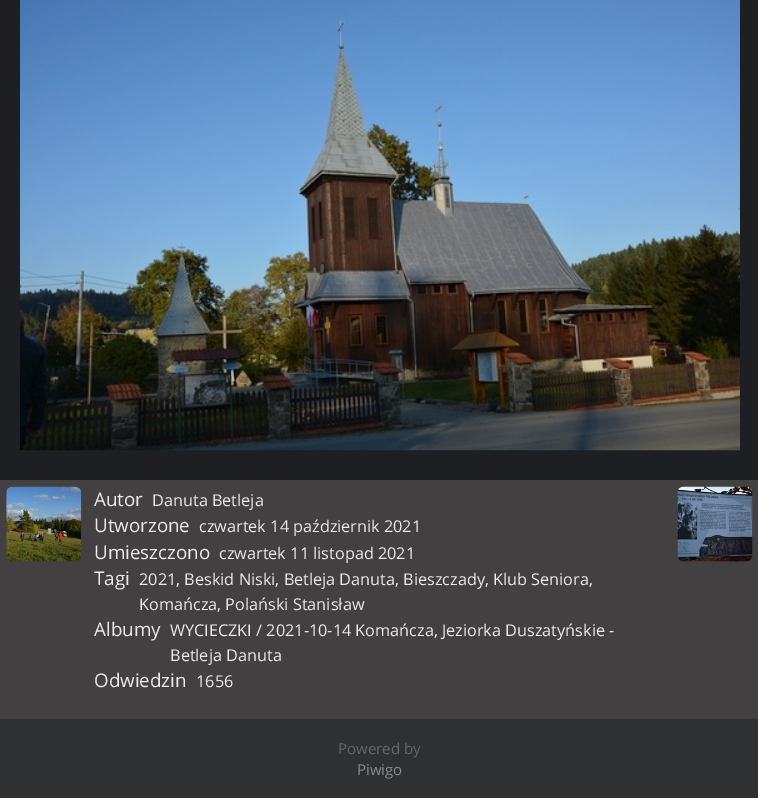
%!PS
<< /PageSize [758 798] >> setpagedevice
/rgb { dup -16 bitshift 255 div exch dup -8 bitshift 255 and 255 div exch 255 and 255 div setrgbcolor } def
/font { [ exch dup neg 0 0 3 -1 roll 0 0 ] selectfont } def
/text { moveto show } def
/picture { 5 dict begin { /h /w /y /x /name } { exch def } forall
  gsave x y translate w h scale
  w h 8 [w 0 0 h 0 0] name (r) file false 3 colorimage grestore end } def
0 798 translate 1 -1 scale
4 setmiterlimit
/s1 { /OpenSans-Regular 18.75 font 16#EAEAE9 rgb } def
/s2 { /OpenSans-Regular 16.25 font 16#EAEAE9 rgb } def
/s3 { /OpenSans-Regular 15 font 16#666666 rgb } def
/s4 { /OpenSans-Regular 15 font 16#8D8B8B rgb } def
16#1E1F23 rgb
0 0 758 798 rectfill
(pic1.raw) 20 0 720 451 picture
16#424040 rgb
0 480 758 239 rectfill
(pic2.raw) 6 486 76 76 picture
(pic3.raw) 677 486 76 76 picture
s1
(Autor) 94 506 text
s2
(Danuta Betleja) 152 506 text
s1
(Utworzone) 94 532 text
s2
(czwartek 14 październik 2021) 199 532 text
s1
(Umieszczono) 94 559 text
s2
(czwartek 11 listopad 2021) 219 559 text
s1
(Tagi) 94 585 text
s2
(2021, Beskid Niski, Betleja Danuta, Bieszczady, Klub Seniora,) 139 585 text
(Komańcza, Polański Stanisław) 139 610 text
s1
(Albumy) 94 636 text
s2
(WYCIECZKI / 2021-10-14 Komańcza, Jeziorka Duszatyńskie -) 170 636 text
(Betleja Danuta) 170 661 text
s1
(Odwiedzin) 94 687 text
s2
(1656) 196 687 text
16#2F3032 rgb
0 719 758 79 rectfill
s3
(Powered by) 338 754 text
s4
(Piwigo) 357 775 text
showpage
